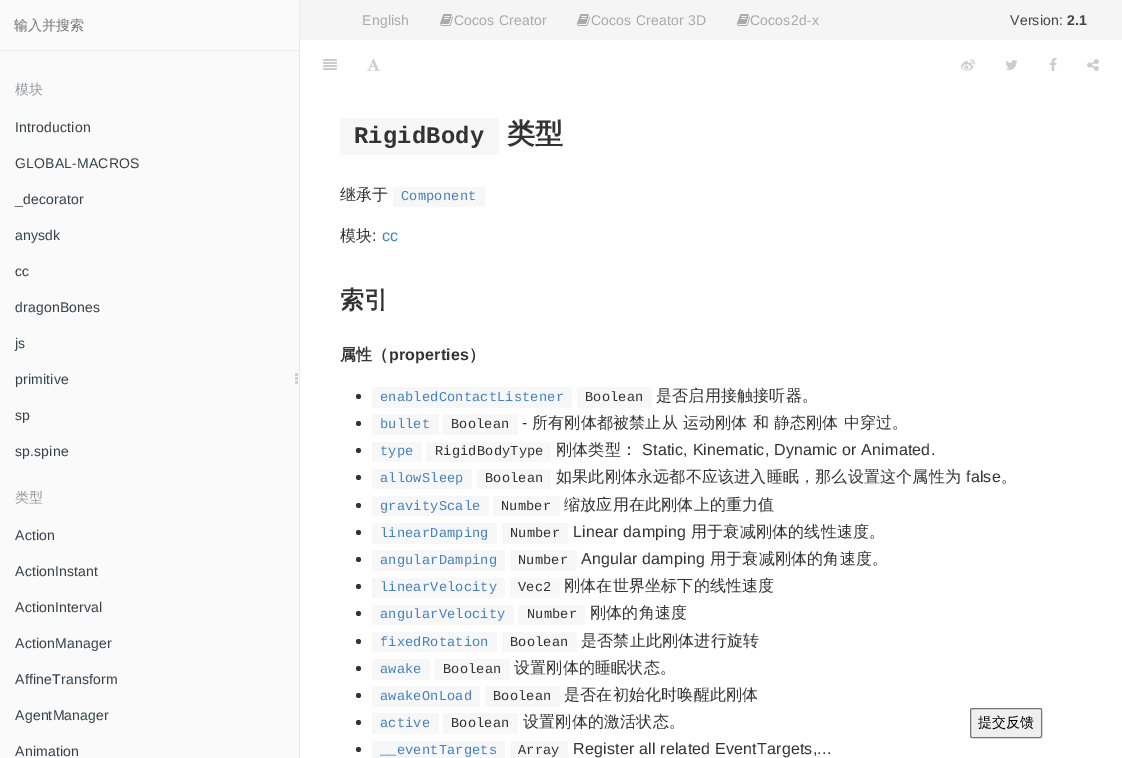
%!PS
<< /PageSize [1122 758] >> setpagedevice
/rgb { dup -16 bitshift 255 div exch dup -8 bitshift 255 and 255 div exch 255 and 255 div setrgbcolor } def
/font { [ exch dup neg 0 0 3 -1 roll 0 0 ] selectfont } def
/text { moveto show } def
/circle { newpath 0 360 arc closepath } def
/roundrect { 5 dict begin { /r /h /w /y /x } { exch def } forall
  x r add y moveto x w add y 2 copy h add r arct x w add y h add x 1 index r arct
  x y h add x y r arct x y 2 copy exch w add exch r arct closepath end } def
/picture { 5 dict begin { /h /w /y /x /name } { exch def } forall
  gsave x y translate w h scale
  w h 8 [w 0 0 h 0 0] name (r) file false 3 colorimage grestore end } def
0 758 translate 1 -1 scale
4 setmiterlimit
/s1 { /WenQuanYiZenHei-Medium 14 font 16#757575 rgb } def
/s2 { /WenQuanYiZenHei-Medium 14 font 16#000000 rgb } def
16#FFFFFF rgb
0 0 1122 758 rectfill
16#FAFAFA rgb
0 0 299 758 rectfill
16#E9E9E9 rgb
299 0 1 758 rectfill
0 50 299 1 rectfill
s1
(输入并搜索) 14 30 text
16#939DA3 rgb
15 94 moveto 0.2 0 (模块) ashow
/LiberationSans-Regular 14 font
16#364149 rgb
15 132 moveto 0.2 0 (Introduction) ashow
15 168 moveto 0.2 0 (GLOBAL-MACROS) ashow
15 204 moveto 0.2 0 (_decorator) ashow
15 240 moveto 0.2 0 (anysdk) ashow
15 276 moveto 0.2 0 (cc) ashow
15 312 moveto 0.2 0 (dragonBones) ashow
15 348 moveto 0.2 0 (js) ashow
15 384 moveto 0.2 0 (primitive) ashow
15 420 moveto 0.2 0 (sp) ashow
15 456 moveto 0.2 0 (sp.spine) ashow
/WenQuanYiZenHei-Medium 14 font
16#939DA3 rgb
15 502 moveto 0.2 0 (类型) ashow
/LiberationSans-Regular 14 font
16#364149 rgb
15 540 moveto 0.2 0 (Action) ashow
15 576 moveto 0.2 0 (ActionInstant) ashow
15 612 moveto 0.2 0 (ActionInterval) ashow
15 648 moveto 0.2 0 (ActionManager) ashow
15 684 moveto 0.2 0 (AffineTransform) ashow
15 720 moveto 0.2 0 (AgentManager) ashow
15 756 moveto 0.2 0 (Animation) ashow
(pic1.raw) 295 373 3 11 picture
16#F5F5F5 rgb
300 0 822 40 rectfill
16#AAAAAA rgb
362 25 moveto 0.2 0 (English) ashow
(pic2.raw) 440 14 13 12 picture
454 25 moveto 0.2 0 (Cocos Creator) ashow
(pic2.raw) 577 14 13 12 picture
591 25 moveto 0.2 0 (Cocos Creator 3D) ashow
(pic2.raw) 737 14 13 12 picture
750 25 moveto 0.2 0 (Cocos2d-x) ashow
16#444444 rgb
1010 25 moveto 0.2 0 (Version:) ashow
/LiberationSans-Bold 14 font
1067 25 moveto 0.2 0 (2.1) ashow
(pic3.raw) 323 59 14 11 picture
(pic4.raw) 367 59 13 12 picture
(pic5.raw) 961 59 14 12 picture
(pic6.raw) 1005 60 13 10 picture
(pic7.raw) 1049 58 8 13 picture
(pic8.raw) 1087 59 12 12 picture
16#F7F7F7 rgb
340 118 159 37 rectfill
/LiberationMono-Bold 23.75 font
16#333333 rgb
354 143 moveto 0.2 0 (RigidBody) ashow
/WenQuanYiZenHei-Bold 28 font
507 143 moveto 0.2 0 (类型) ashow
/WenQuanYiZenHei-Medium 16 font
340 200 moveto 0.2 0 (继承于) ashow
16#F7F7F7 rgb
393 187 92 20 rectfill
/LiberationMono-Regular 13.6 font
16#4183C4 rgb
401 200 moveto 0.2 0 (Component) ashow
/WenQuanYiZenHei-Medium 16 font
16#333333 rgb
340 241 moveto 0.2 0 (模块) ashow
/LiberationSans-Regular 16 font
372 241 moveto 0.2 0 (:) ashow
16#4183C4 rgb
382 241 moveto 0.2 0 (cc) ashow
/WenQuanYiZenHei-Bold 24 font
16#333333 rgb
340 308 moveto 0.2 0 (索引) ashow
/WenQuanYiZenHei-Bold 16 font
340 360 moveto 0.2 0 (属性（) ashow
/LiberationSans-Bold 16 font
389 360 moveto 0.2 0 (properties) ashow
/WenQuanYiZenHei-Bold 16 font
469 360 moveto 0.2 0 (）) ashow
358.5 396.5 2.5 circle fill
16#F7F7F7 rgb
372 387 200 21 rectfill
/LiberationMono-Regular 13.6 font
16#4183C4 rgb
380 401 moveto 0.2 0 (enabledContactListener) ashow
16#F7F7F7 rgb
577 387 75 21 rectfill
16#333333 rgb
585 401 moveto 0.2 0 (Boolean) ashow
/WenQuanYiZenHei-Medium 16 font
656 401 moveto 0.2 0 (是否启用接触接听器。) ashow
358.5 423.5 2.5 circle fill
16#F7F7F7 rgb
372 414 67 21 rectfill
/LiberationMono-Regular 13.6 font
16#4183C4 rgb
380 428 moveto 0.2 0 (bullet) ashow
16#F7F7F7 rgb
443 414 75 21 rectfill
16#333333 rgb
451 428 moveto 0.2 0 (Boolean) ashow
/LiberationSans-Regular 16 font
522 428 moveto 0.2 0 (-) ashow
/WenQuanYiZenHei-Medium 16 font
532 428 moveto 0.2 0 (所有刚体都被禁止从 运动刚体 和 静态刚体 中穿过。) ashow
358.5 450.5 2.5 circle fill
16#F7F7F7 rgb
372 442 50 20 rectfill
/LiberationMono-Regular 13.6 font
16#4183C4 rgb
380 455 moveto 0.2 0 (type) ashow
16#F7F7F7 rgb
426 442 125 20 rectfill
16#333333 rgb
435 455 moveto 0.2 0 (RigidBodyType) ashow
/WenQuanYiZenHei-Medium 16 font
556 455 moveto 0.2 0 (刚体类型：) ashow
/LiberationSans-Regular 16 font
642 455 moveto 0.2 0 (Static, Kinematic, Dynamic or Animated.) ashow
358.5 477.5 2.5 circle fill
16#F7F7F7 rgb
372 469 100 20 rectfill
/LiberationMono-Regular 13.6 font
16#4183C4 rgb
380 482 moveto 0.2 0 (allowSleep) ashow
16#F7F7F7 rgb
477 469 74 20 rectfill
16#333333 rgb
485 482 moveto 0.2 0 (Boolean) ashow
/WenQuanYiZenHei-Medium 16 font
556 482 moveto 0.2 0 (如果此刚体永远都不应该进入睡眠，那么设置这个属性为) ashow
/LiberationSans-Regular 16 font
966 482 moveto 0.2 0 (false) ashow
/WenQuanYiZenHei-Medium 16 font
1001 482 moveto 0.2 0 (。) ashow
358.5 505.5 2.5 circle fill
16#F7F7F7 rgb
372 496 117 20 rectfill
/LiberationMono-Regular 13.6 font
16#4183C4 rgb
380 510 moveto 0.2 0 (gravityScale) ashow
16#F7F7F7 rgb
493 496 67 20 rectfill
16#333333 rgb
501 510 moveto 0.2 0 (Number) ashow
/WenQuanYiZenHei-Medium 16 font
564 510 moveto 0.2 0 (缩放应用在此刚体上的重力值) ashow
358.5 532.5 2.5 circle fill
16#F7F7F7 rgb
372 523 125 21 rectfill
/LiberationMono-Regular 13.6 font
16#4183C4 rgb
380 537 moveto 0.2 0 (linearDamping) ashow
16#F7F7F7 rgb
502 523 66 21 rectfill
16#333333 rgb
510 537 moveto 0.2 0 (Number) ashow
/LiberationSans-Regular 16 font
573 537 moveto 0.2 0 (Linear damping) ashow
/WenQuanYiZenHei-Medium 16 font
691 537 moveto 0.2 0 (用于衰减刚体的线性速度。) ashow
358.5 559.5 2.5 circle fill
16#F7F7F7 rgb
372 550 133 21 rectfill
/LiberationMono-Regular 13.6 font
16#4183C4 rgb
380 564 moveto 0.2 0 (angularDamping) ashow
16#F7F7F7 rgb
510 550 67 21 rectfill
16#333333 rgb
518 564 moveto 0.2 0 (Number) ashow
/LiberationSans-Regular 16 font
581 564 moveto 0.2 0 (Angular damping) ashow
/WenQuanYiZenHei-Medium 16 font
710 564 moveto 0.2 0 (用于衰减刚体的角速度。) ashow
358.5 586.5 2.5 circle fill
16#F7F7F7 rgb
372 578 133 20 rectfill
/LiberationMono-Regular 13.6 font
16#4183C4 rgb
380 591 moveto 0.2 0 (linearVelocity) ashow
16#F7F7F7 rgb
510 578 50 20 rectfill
16#333333 rgb
518 591 moveto 0.2 0 (Vec2) ashow
/WenQuanYiZenHei-Medium 16 font
564 591 moveto 0.2 0 (刚体在世界坐标下的线性速度) ashow
358.5 613.5 2.5 circle fill
16#F7F7F7 rgb
372 605 142 20 rectfill
/LiberationMono-Regular 13.6 font
16#4183C4 rgb
380 618 moveto 0.2 0 (angularVelocity) ashow
16#F7F7F7 rgb
518 605 67 20 rectfill
16#333333 rgb
527 618 moveto 0.2 0 (Number) ashow
/WenQuanYiZenHei-Medium 16 font
590 618 moveto 0.2 0 (刚体的角速度) ashow
358.5 641.5 2.5 circle fill
16#F7F7F7 rgb
372 632 125 20 rectfill
/LiberationMono-Regular 13.6 font
16#4183C4 rgb
380 646 moveto 0.2 0 (fixedRotation) ashow
16#F7F7F7 rgb
502 632 75 20 rectfill
16#333333 rgb
510 646 moveto 0.2 0 (Boolean) ashow
/WenQuanYiZenHei-Medium 16 font
581 646 moveto 0.2 0 (是否禁止此刚体进行旋转) ashow
358.5 668.5 2.5 circle fill
16#F7F7F7 rgb
372 659 58 21 rectfill
/LiberationMono-Regular 13.6 font
16#4183C4 rgb
380 673 moveto 0.2 0 (awake) ashow
16#F7F7F7 rgb
435 659 75 21 rectfill
16#333333 rgb
443 673 moveto 0.2 0 (Boolean) ashow
/WenQuanYiZenHei-Medium 16 font
514 673 moveto 0.2 0 (设置刚体的睡眠状态。) ashow
358.5 695.5 2.5 circle fill
16#F7F7F7 rgb
372 686 108 21 rectfill
/LiberationMono-Regular 13.6 font
16#4183C4 rgb
380 700 moveto 0.2 0 (awakeOnLoad) ashow
16#F7F7F7 rgb
485 686 75 21 rectfill
16#333333 rgb
493 700 moveto 0.2 0 (Boolean) ashow
/WenQuanYiZenHei-Medium 16 font
564 700 moveto 0.2 0 (是否在初始化时唤醒此刚体) ashow
358.5 722.5 2.5 circle fill
16#F7F7F7 rgb
372 713 67 21 rectfill
/LiberationMono-Regular 13.6 font
16#4183C4 rgb
380 727 moveto 0.2 0 (active) ashow
16#F7F7F7 rgb
443 713 75 21 rectfill
16#333333 rgb
451 727 moveto 0.2 0 (Boolean) ashow
/WenQuanYiZenHei-Medium 16 font
523 727 moveto 0.2 0 (设置刚体的激活状态。) ashow
358.5 749.5 2.5 circle fill
16#F7F7F7 rgb
372 741 133 17 rectfill
/LiberationMono-Regular 13.6 font
16#4183C4 rgb
380 754 moveto 0.2 0 (__eventTargets) ashow
16#F7F7F7 rgb
510 741 58 17 rectfill
16#333333 rgb
518 754 moveto 0.2 0 (Array) ashow
/LiberationSans-Regular 16 font
573 754 moveto 0.2 0 (Register all related EventTargets,...) ashow
16#EFEFEF rgb
970.5 708.5 71 29 1.5 roundrect gsave fill grestore
16#767676 rgb
stroke
s2
(提交反馈) 978 727 text
showpage
